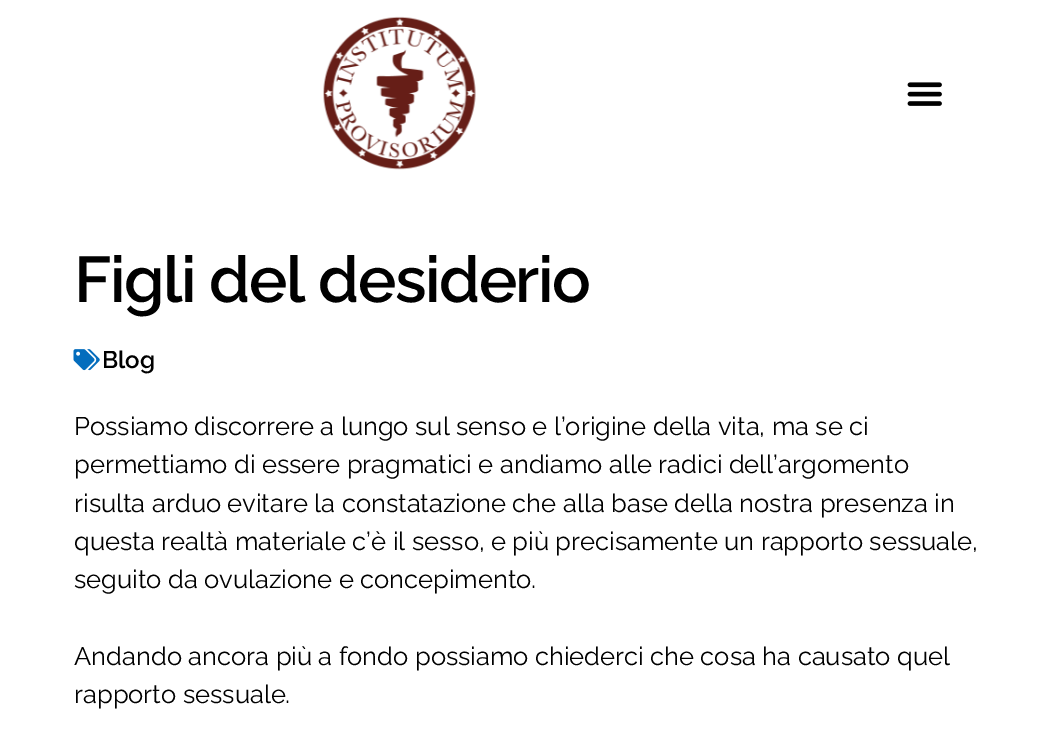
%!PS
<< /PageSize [1051 733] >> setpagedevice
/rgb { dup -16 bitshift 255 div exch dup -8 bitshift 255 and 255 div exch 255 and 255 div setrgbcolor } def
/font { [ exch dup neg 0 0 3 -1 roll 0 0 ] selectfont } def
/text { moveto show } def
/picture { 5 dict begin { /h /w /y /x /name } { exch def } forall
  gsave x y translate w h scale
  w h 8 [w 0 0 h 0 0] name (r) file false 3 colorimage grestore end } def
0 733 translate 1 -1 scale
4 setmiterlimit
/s1 { /Raleway-SemiBold 24 font 16#000000 rgb } def
/s2 { /Raleway-Regular 25.5 font 16#000000 rgb } def
16#FFFFFF rgb
0 0 1051 733 rectfill
(pic1.raw) 323 16 153 154 picture
(pic2.raw) 907 82 35 24 picture
/Raleway-SemiBold 64.5 font
16#000000 rgb
74 302 moveto -1.5 0 (Figli del desiderio) ashow
(pic3.raw) 73 349 27 22 picture
s1
(Blog) 102 368 text
s2
(Possiamo discorrere a lungo sul senso e l’origine della vita, ma se ci) 74 435 text
(permettiamo di essere pragmatici e andiamo alle radici dell’argomento) 74 473 text
(risulta arduo evitare la constatazione che alla base della nostra presenza in) 74 512 text
(questa realtà materiale c’è il sesso, e più precisamente un rapporto sessuale,) 74 550 text
(seguito da ovulazione e concepimento.) 74 588 text
(Andando ancora più a fondo possiamo chiederci che cosa ha causato quel) 74 665 text
(rapporto sessuale.) 74 703 text
showpage
